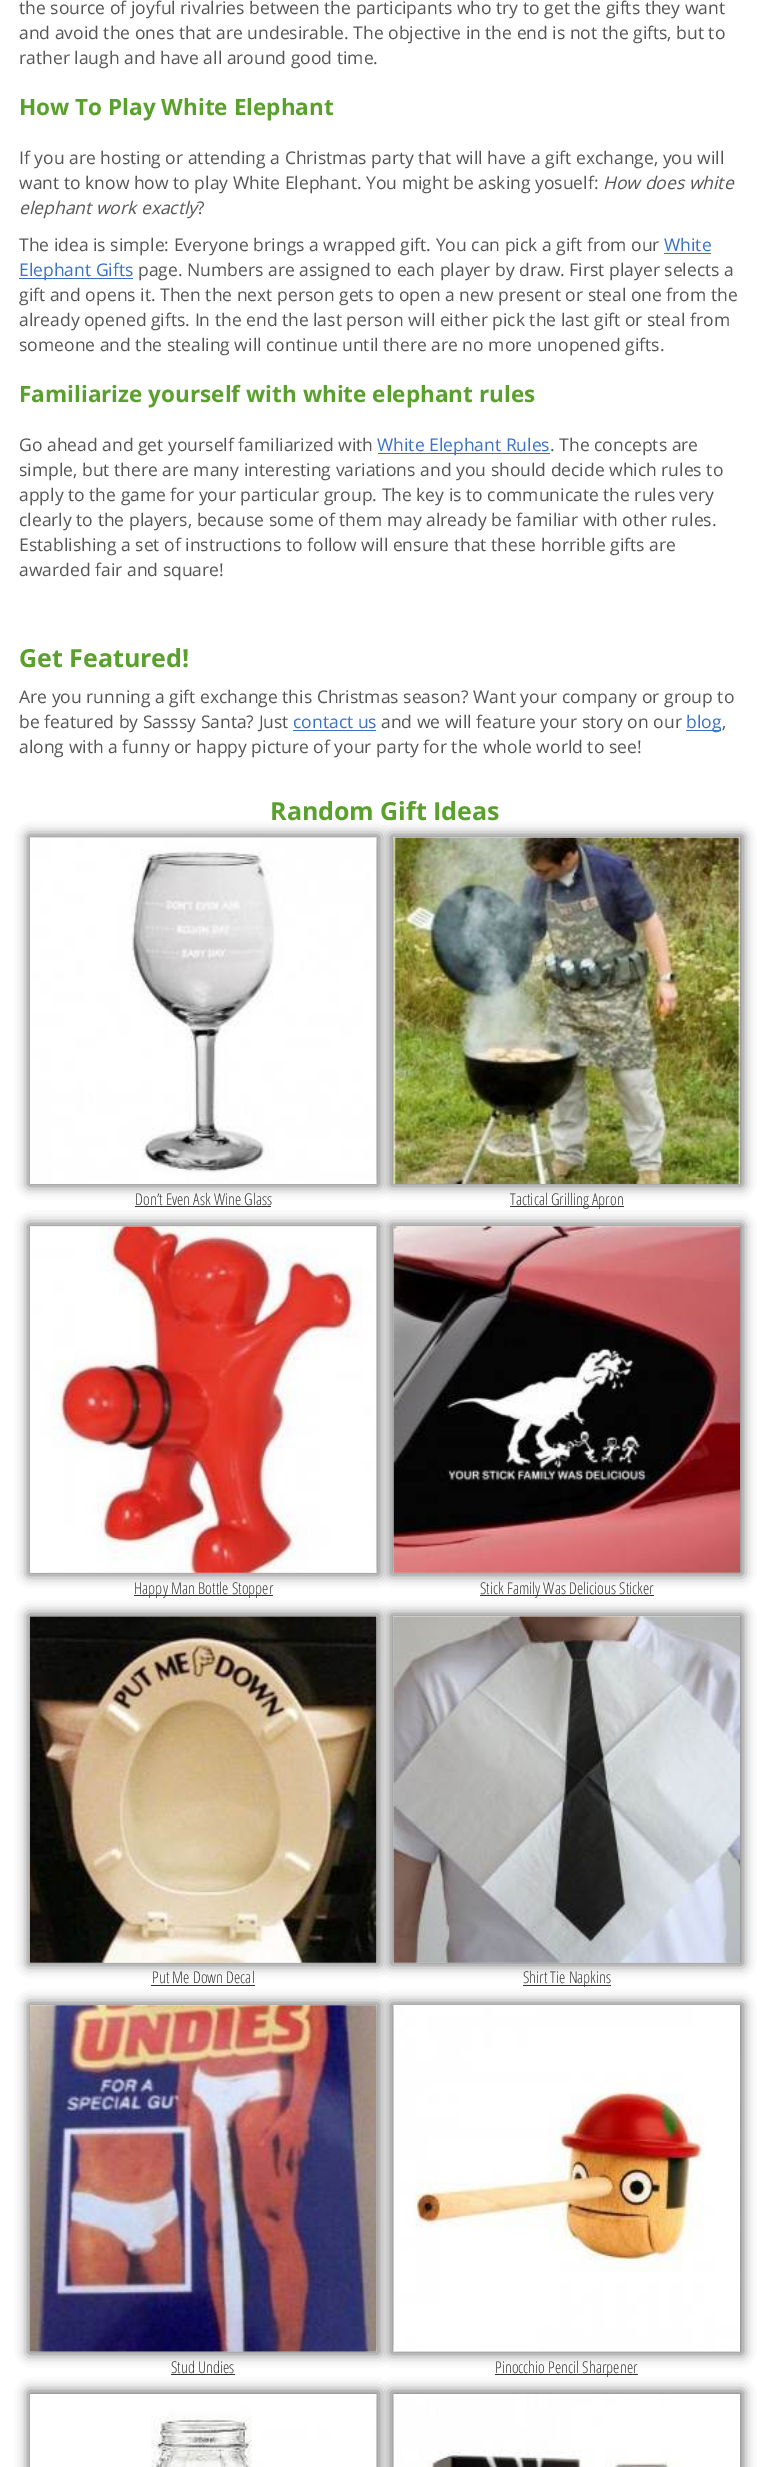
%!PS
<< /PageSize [769 2467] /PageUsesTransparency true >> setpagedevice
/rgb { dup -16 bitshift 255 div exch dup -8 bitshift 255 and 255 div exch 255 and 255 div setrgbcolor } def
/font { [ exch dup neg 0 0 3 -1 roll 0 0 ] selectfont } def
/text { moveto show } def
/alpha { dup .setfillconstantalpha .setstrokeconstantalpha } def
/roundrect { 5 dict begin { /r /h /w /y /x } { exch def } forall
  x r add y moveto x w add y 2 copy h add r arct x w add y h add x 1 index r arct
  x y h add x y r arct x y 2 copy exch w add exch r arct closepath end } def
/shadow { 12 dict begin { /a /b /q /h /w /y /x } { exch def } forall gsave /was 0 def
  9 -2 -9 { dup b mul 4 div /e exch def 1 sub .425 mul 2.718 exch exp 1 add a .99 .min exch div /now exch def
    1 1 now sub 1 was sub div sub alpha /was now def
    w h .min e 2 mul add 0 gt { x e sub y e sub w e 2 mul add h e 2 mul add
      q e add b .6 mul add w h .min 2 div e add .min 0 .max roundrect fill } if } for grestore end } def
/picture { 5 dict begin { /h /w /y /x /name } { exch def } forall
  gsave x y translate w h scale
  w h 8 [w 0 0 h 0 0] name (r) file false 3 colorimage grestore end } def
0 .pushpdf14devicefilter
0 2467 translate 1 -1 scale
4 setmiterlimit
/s1 { /OpenSans-Regular 17.5 font 16#555555 rgb } def
/s2 { /OpenSans-Bold 22.5 font 16#5AA02C rgb } def
/s3 { /OpenSans-Italic 17.5 font 16#555555 rgb } def
/s4 { /OpenSans-Regular 17.5 font 16#3771C8 rgb } def
/s5 { /OpenSans-Bold 25 font 16#5AA02C rgb } def
/s6 { /OpenSans-Light 16.25 font 16#333333 rgb } def
16#FFFFFF rgb
0 0 769 2467 rectfill
s1
(the source of joyful rivalries between the participants who try to get the gifts they want) 19 14 text
(and avoid the ones that are undesirable. The objective in the end is not the gifts, but to) 19 39 text
(rather laugh and have all around good time.) 19 64 text
s2
(How To Play White Elephant) 19 115 text
s1
(If you are hosting or attending a Christmas party that will have a gift exchange, you will) 19 164 text
(want to know how to play White Elephant. You might be asking yosuelf:) 19 189 text
s3
(How does white) 603 189 text
(elephant work exactly) 19 214 text
s1
(?) 197 214 text
(The idea is simple: Everyone brings a wrapped gift. You can pick a gift from our) 19 251 text
s4
(White) 664 251 text
664 253 47 1 rectfill
19 278 114 1 rectfill
(Elephant Gifts) 19 276 text
s1
(page. Numbers are assigned to each player by draw. First player selects a) 138 276 text
(gift and opens it. Then the next person gets to open a new present or steal one from the) 19 301 text
(already opened gifts. In the end the last person will either pick the last gift or steal from) 19 326 text
(someone and the stealing will continue until there are no more unopened gifts.) 19 351 text
s2
(Familiarize yourself with white elephant rules) 19 402 text
s1
(Go ahead and get yourself familiarized with) 19 451 text
16#3771C8 rgb
378 453 172 1 rectfill
(White Elephant Rules) 377 451 text
s1
(. The concepts are) 550 451 text
(simple, but there are many interesting variations and you should decide which rules to) 19 476 text
(apply to the game for your particular group. The key is to communicate the rules very) 19 501 text
(clearly to the players, because some of them may already be familiar with other rules.) 19 526 text
(Establishing a set of instructions to follow will ensure that these horrible gifts are) 19 551 text
(awarded fair and square!) 19 576 text
s5
(Get Featured!) 19 667 text
s1
(Are you running a gift exchange this Christmas season? Want your company or group to) 19 703 text
(be featured by Sasssy Santa? Just) 19 728 text
s4
(contact us) 293 728 text
293 730 83 1 rectfill
s1
(and we will feature your story on our) 381 728 text
16#3771C8 rgb
686 730 35 1 rectfill
(blog) 686 728 text
s1
(,) 722 728 text
(along with a funny or happy picture of your party for the whole world to see!) 19 753 text
s5
(Random Gift Ideas) 270 820 text
16#000000 rgb
28 835 351 351 0 6 0.55 shadow
(pic1.raw) 30 837 347 347 picture
s6
(Don’t Even Ask Wine Glass) 135 1205 text
135 1206 136 1 rectfill
16#000000 rgb
391 835 352 351 0 6 0.55 shadow
(pic2.raw) 393 837 347 347 picture
16#333333 rgb
510 1206 114 1 rectfill
(Tactical Grilling Apron) 510 1205 text
16#000000 rgb
28 1224 351 351 0 6 0.55 shadow
(pic3.raw) 30 1226 347 347 picture
16#333333 rgb
134 1595 139 1 rectfill
(Happy Man Bottle Stopper) 134 1594 text
16#000000 rgb
391 1224 352 351 0 6 0.55 shadow
(pic4.raw) 393 1226 347 347 picture
16#333333 rgb
480 1595 174 1 rectfill
(Stick Family Was Delicious Sticker) 480 1594 text
16#000000 rgb
28 1614 351 351 0 6 0.55 shadow
(pic5.raw) 30 1616 347 347 picture
s6
(Put Me Down Decal) 152 1983 text
151 1985 104 1 rectfill
16#000000 rgb
391 1614 352 351 0 6 0.55 shadow
(pic6.raw) 393 1616 347 347 picture
16#333333 rgb
523 1985 88 1 rectfill
(Shirt Tie Napkins) 523 1983 text
16#000000 rgb
28 2003 351 351 0 6 0.55 shadow
(pic7.raw) 30 2005 347 347 picture
s6
(Stud Undies) 171 2373 text
171 2374 64 1 rectfill
16#000000 rgb
391 2003 352 351 0 6 0.55 shadow
(pic8.raw) 393 2005 347 347 picture
16#333333 rgb
495 2374 143 1 rectfill
(Pinocchio Pencil Sharpener) 495 2373 text
gsave
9 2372 moveto 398 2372 lineto 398 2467 lineto 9 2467 lineto closepath 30 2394 moveto 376 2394 lineto 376 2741 lineto 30 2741 lineto closepath eoclip newpath
16#000000 rgb
28 2391 351 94 0 6 0.55 shadow
grestore
(pic9.raw) 150 2394 227 73 picture
gsave
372 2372 moveto 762 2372 lineto 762 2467 lineto 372 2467 lineto closepath 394 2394 moveto 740 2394 lineto 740 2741 lineto 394 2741 lineto closepath eoclip newpath
16#000000 rgb
391 2391 352 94 0 6 0.55 shadow
grestore
(pic10.raw) 393 2394 289 73 picture
.poppdf14devicefilter showpage
